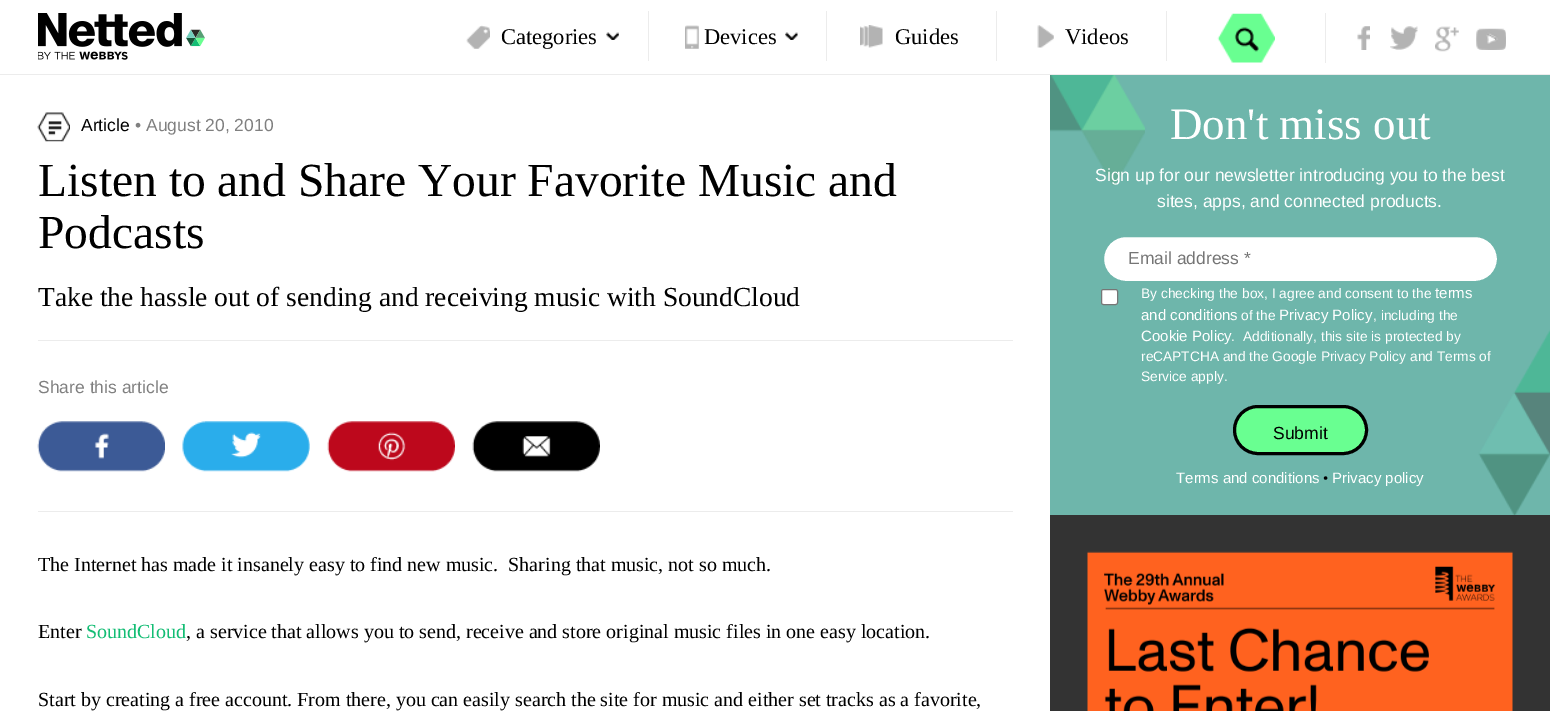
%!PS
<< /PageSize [1550 711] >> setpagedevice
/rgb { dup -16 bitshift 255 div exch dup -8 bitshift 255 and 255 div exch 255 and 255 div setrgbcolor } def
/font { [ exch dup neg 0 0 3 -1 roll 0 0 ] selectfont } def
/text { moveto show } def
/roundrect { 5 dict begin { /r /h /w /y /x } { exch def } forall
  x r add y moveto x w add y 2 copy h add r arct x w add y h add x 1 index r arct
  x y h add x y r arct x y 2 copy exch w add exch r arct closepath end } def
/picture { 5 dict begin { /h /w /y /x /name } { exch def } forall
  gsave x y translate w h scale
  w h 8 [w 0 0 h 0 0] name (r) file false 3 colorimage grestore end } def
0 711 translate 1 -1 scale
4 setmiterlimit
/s1 { /LiberationSerif-Regular 22.5 font 16#000000 rgb } def
/s2 { /LiberationSans-Regular 17.5 font 16#000000 rgb } def
/s3 { /LiberationSans-Regular 17.5 font 16#808080 rgb } def
/s4 { /LiberationSerif-Regular 47.5 font 16#000000 rgb } def
/s5 { /LiberationSerif-Regular 27.5 font 16#000000 rgb } def
/s6 { /LiberationSerif-Regular 20 font 16#000000 rgb } def
/s7 { /LiberationSerif-Regular 20 font 16#13BD74 rgb } def
/s8 { /LiberationSerif-Regular 45 font 16#FFFFFF rgb } def
/s9 { /LiberationSans-Regular 17.5 font 16#FFFFFF rgb } def
/s10 { /LiberationSans-Regular 17.5 font 16#757575 rgb } def
/s11 { /LiberationSans-Regular 13.75 font 16#FFFFFF rgb } def
/s12 { /LiberationSans-Regular 15 font 16#FFFFFF rgb } def
/s13 { /LiberationSerif-Regular 15 font 16#000000 rgb } def
16#FFFFFF rgb
0 0 1550 711 rectfill
16#ECECEC rgb
0 74 1550 1 rectfill
(pic1.raw) 38 13 167 47 picture
(pic2.raw) 466 25 153 24 picture
648 11 1 50 rectfill
s1
(Categories) 501 44 text
(pic3.raw) 685 25 113 24 picture
16#ECECEC rgb
826 11 1 50 rectfill
s1
(Devices) 704 44 text
(pic4.raw) 860 25 23 23 picture
16#ECECEC rgb
996 11 1 50 rectfill
s1
(Guides) 895 44 text
(pic5.raw) 1037 25 17 23 picture
16#ECECEC rgb
1166 11 1 50 rectfill
s1
(Videos) 1065 44 text
16#ECECEC rgb
1325 13 1 50 rectfill
(pic6.raw) 1217 13 58 50 picture
(pic7.raw) 1357 26 13 24 picture
(pic8.raw) 1390 26 28 24 picture
(pic9.raw) 1435 26 24 26 picture
(pic10.raw) 1476 28 30 22 picture
(pic11.raw) 37 112 33 30 picture
s2
(Article) 81 131 text
s3
(• August 20, 2010) 135 131 text
s4
(Listen to and Share Your Favorite Music and) 38 196 text
(Podcasts) 38 248 text
s5
(Take the hassle out of sending and receiving music with SoundCloud) 38 306 text
16#ECECEC rgb
38 340 975 1 rectfill
38 511 975 1 rectfill
s3
(Share this article) 38 393 text
(pic12.raw) 37 421 128 51 picture
(pic13.raw) 182 421 128 51 picture
(pic14.raw) 327 421 128 51 picture
(pic15.raw) 472 421 128 51 picture
s6
(The Internet has made it insanely easy to find new music.  Sharing that music, not so much.) 38 571 text
(Enter) 38 638 text
s7
(SoundCloud) 86 638 text
s6
(, a service that allows you to send, receive and store original music files in one easy location.) 186 638 text
(Start by creating a free account. From there, you can easily search the site for music and either set tracks as a favorite,) 38 706 text
16#6EB6AB rgb
1050 75 500 440 rectfill
(pic16.raw) 1050 75 500 440 picture
s8
(Don't miss out) 1170 139 text
s9
(Sign up for our newsletter introducing you to the best) 1095 181 text
(sites, apps, and connected products.) 1157 207 text
1102.5 235.5 396 47 23.5 roundrect gsave fill grestore
16#6EB6AB rgb
3 setlinewidth
stroke
s10
(Email address *) 1128 264 text
16#FFFFFF rgb
1101.5 289.5 16 15 2 roundrect gsave fill grestore
16#767676 rgb
1 setlinewidth
stroke
s11
(By checking the box, I agree and consent to the) 1141 298 text
s12
(terms) 1435 298 text
(and conditions) 1141 320 text
s11
(of the) 1241 320 text
s12
(Privacy Policy) 1279 320 text
s11
(, including the) 1373 320 text
s12
(Cookie Policy) 1141 341 text
s11
(.) 1231 341 text
(Additionally, this site is protected by) 1243 341 text
(reCAPTCHA and the Google Privacy Policy and Terms of) 1141 361 text
(Service apply.) 1141 381 text
16#69FF91 rgb
1234.5 406.5 132 47 23.5 roundrect gsave fill grestore
16#000000 rgb
3 setlinewidth
stroke
s2
(Submit) 1273 439 text
s12
(Terms and conditions) 1176 483 text
s13
(•) 1323 483 text
s12
(Privacy policy) 1332 483 text
16#333333 rgb
1050 515 500 196 rectfill
(pic17.raw) 1087 551 426 160 picture
showpage
